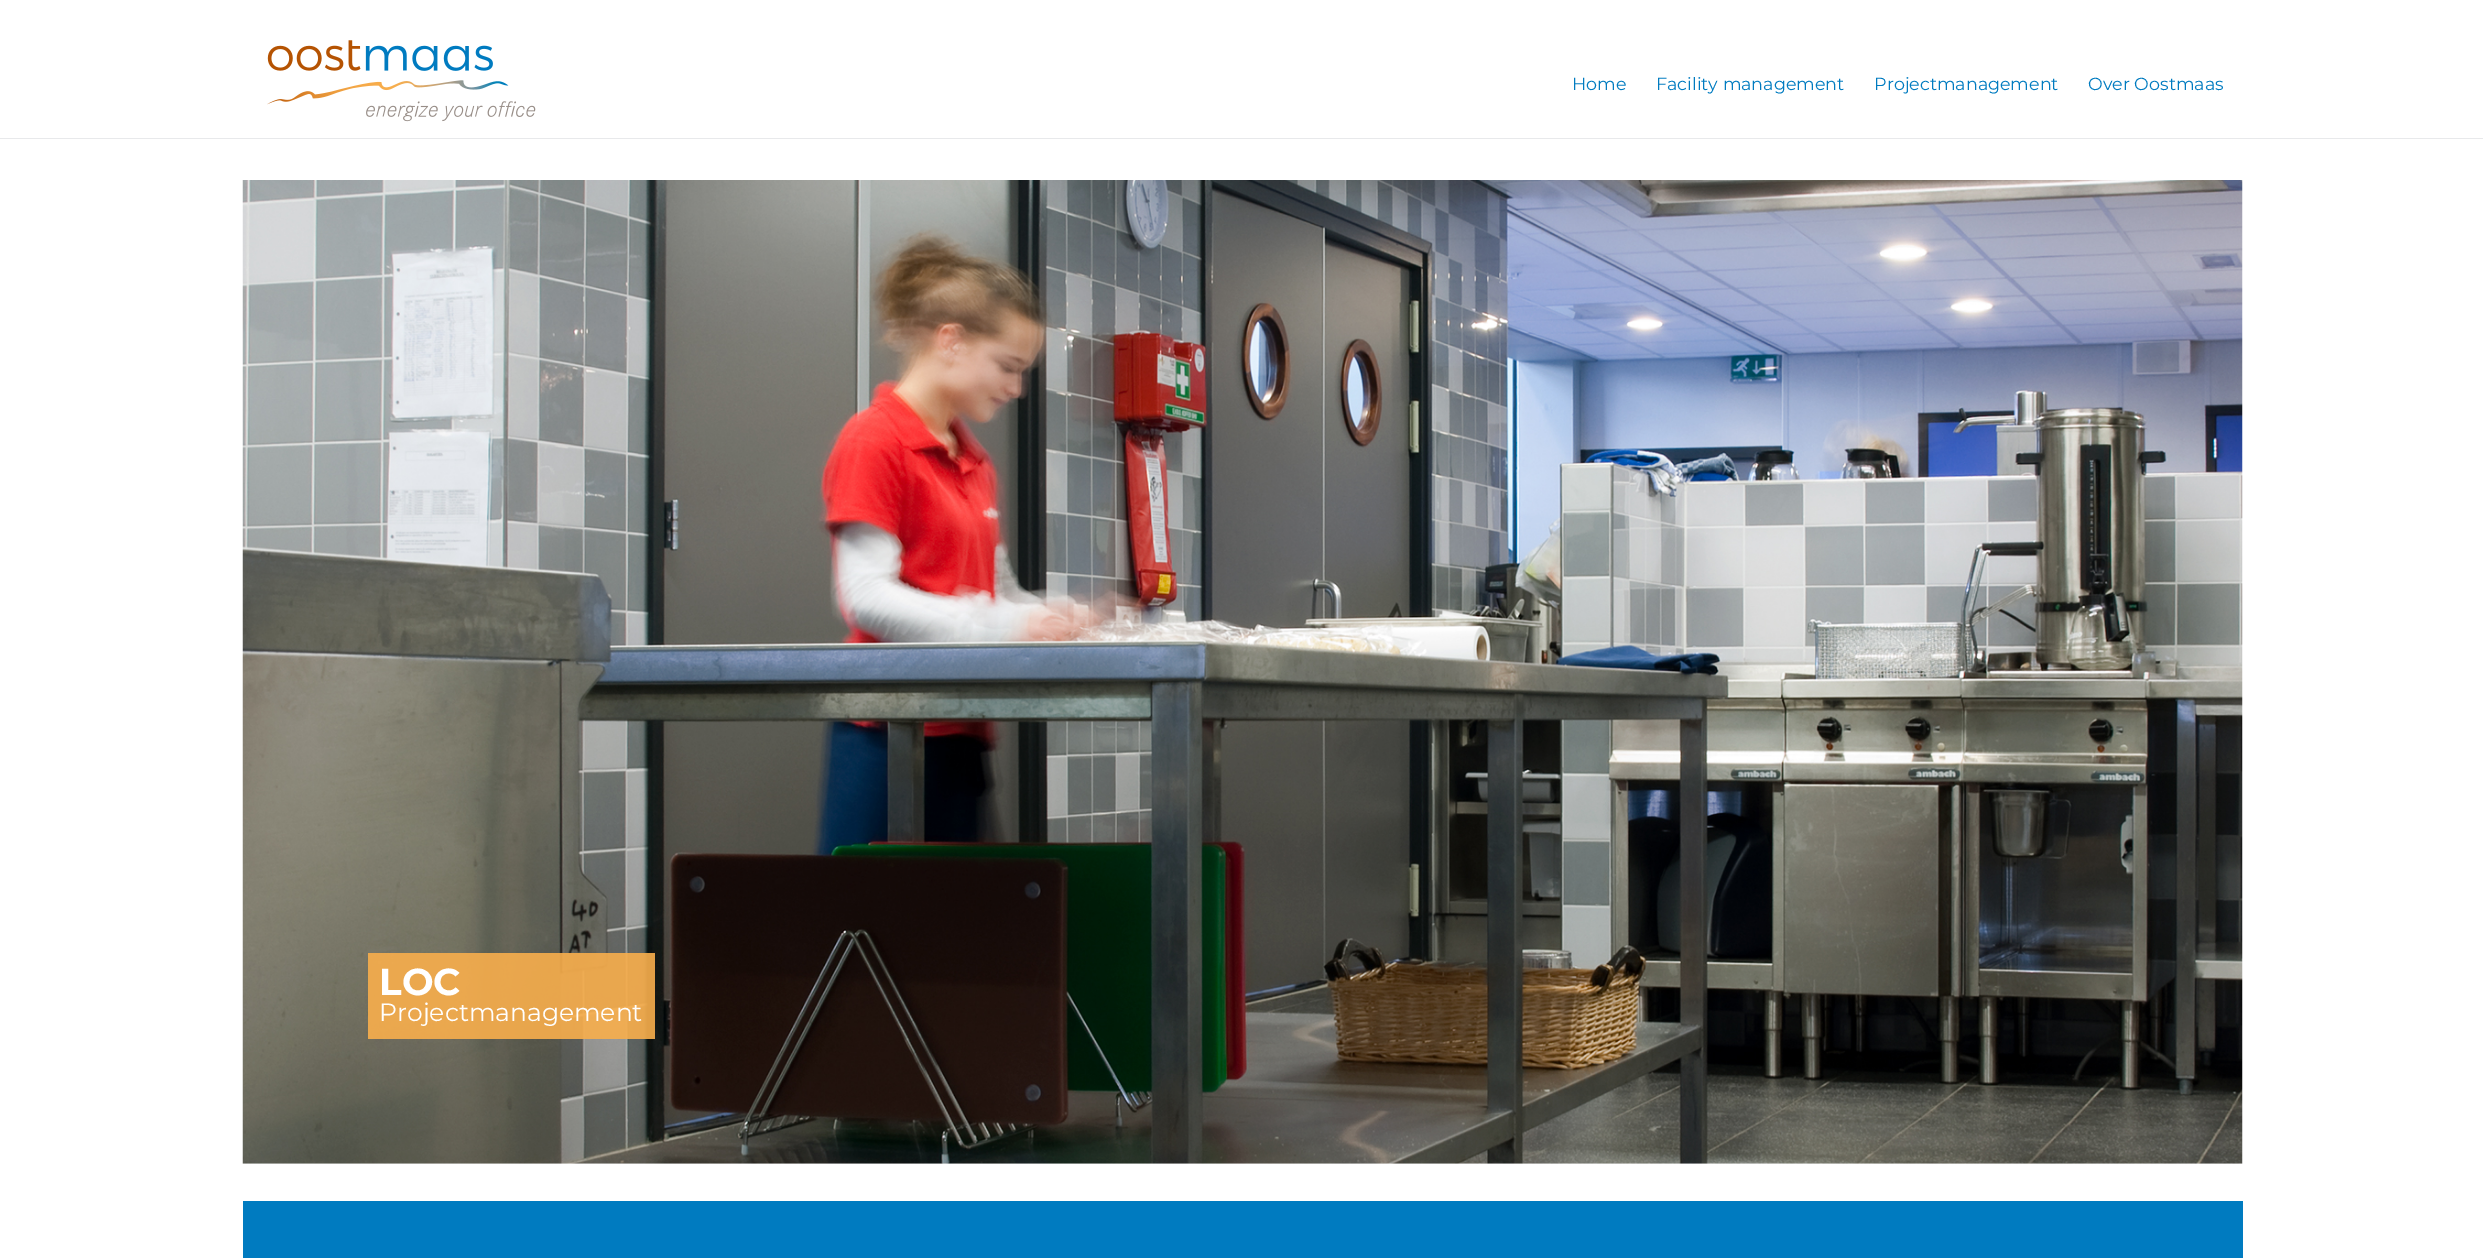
%!PS
<< /PageSize [2483 1258] /PageUsesTransparency true >> setpagedevice
/rgb { dup -16 bitshift 255 div exch dup -8 bitshift 255 and 255 div exch 255 and 255 div setrgbcolor } def
/font { [ exch dup neg 0 0 3 -1 roll 0 0 ] selectfont } def
/text { moveto show } def
/alpha { dup .setfillconstantalpha .setstrokeconstantalpha } def
/picture { 5 dict begin { /h /w /y /x /name } { exch def } forall
  gsave x y translate w h scale
  w h 8 [w 0 0 h 0 0] name (r) file false 3 colorimage grestore end } def
0 .pushpdf14devicefilter
0 1258 translate 1 -1 scale
4 setmiterlimit
/s1 { /Montserrat-Regular 17.5 font 16#007BC0 rgb } def
/s2 { /Montserrat-Bold 37.5 font 16#FFFFFF rgb } def
/s3 { /Montserrat-Regular 25 font 16#FFFFFF rgb } def
16#FFFFFF rgb
0 0 2483 1258 rectfill
16#E8E9EB rgb
0 138 2483 1 rectfill
(pic1.raw) 267 40 269 82 picture
s1
(Home) 1572 90 text
(Facility management) 1656 90 text
(Projectmanagement) 1874 90 text
(Over Oostmaas) 2088 90 text
(pic2.raw) 242 180 2001 984 picture
0.9 alpha
16#F8AE4C rgb
368 953 287 86 rectfill
1 alpha
s2
(LOC) 379 995 text
s3
(Projectmanagement) 379 1021 text
16#007BC0 rgb
243 1201 2000 57 rectfill
.poppdf14devicefilter showpage
